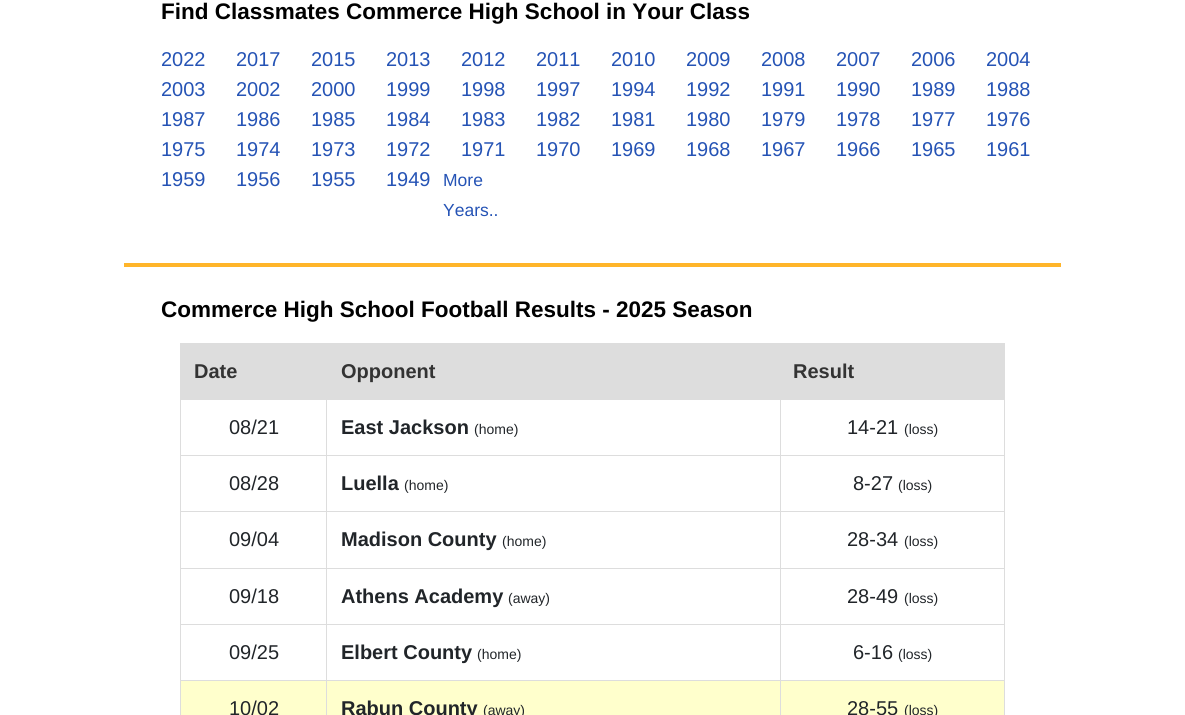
#include <cairo/cairo.h>
#include <math.h>
#include <stddef.h>

typedef struct { double x, y; const char *s; } line_t;
typedef struct { double x, y, w, h; unsigned color; } box_t;
static cairo_t *cr;

static void rgb(unsigned color)
{
	cairo_set_source_rgb(cr, (color >> 16) / 255.0, (color >> 8 & 255) / 255.0, (color & 255) / 255.0);
}

int main(void) {
	cairo_surface_t *surface = cairo_image_surface_create(CAIRO_FORMAT_RGB24, 1185, 715);
	cr = cairo_create(surface);
	cairo_font_options_t *options = cairo_font_options_create();
	cairo_font_options_set_hint_metrics(options, CAIRO_HINT_METRICS_OFF);
	cairo_font_options_set_hint_style(options, CAIRO_HINT_STYLE_NONE);
	cairo_set_font_options(cr, options);
	cairo_set_miter_limit(cr, 4);
	rgb(0xffffff);
	cairo_paint(cr);
	{
		static const box_t items[] = {
			{124, 263, 937, 4, 0xffb52a},
			{181, 344, 147, 55, 0xdddddd},
			{180, 343, 825, 1, 0xdddddd},
			{780, 455, 225, 1, 0xdddddd},
			{780, 511, 225, 1, 0xdddddd},
			{780, 568, 225, 1, 0xdddddd},
			{780, 624, 225, 1, 0xdddddd},
			{780, 680, 225, 1, 0xdddddd},
			{780, 680, 1, 35, 0xdddddd},
			{326, 680, 455, 1, 0xdddddd},
			{780, 624, 1, 57, 0xdddddd},
			{326, 624, 455, 1, 0xdddddd},
			{780, 568, 1, 57, 0xdddddd},
			{326, 568, 455, 1, 0xdddddd},
			{780, 511, 1, 58, 0xdddddd},
			{326, 511, 455, 1, 0xdddddd},
			{780, 455, 1, 58, 0xdddddd},
			{326, 455, 455, 1, 0xdddddd},
			{181, 681, 599, 34, 0xffffcc},
			{326, 680, 1, 35, 0xdddddd},
			{180, 680, 148, 1, 0xdddddd},
			{326, 624, 1, 57, 0xdddddd},
			{180, 624, 148, 1, 0xdddddd},
			{326, 568, 1, 57, 0xdddddd},
			{180, 568, 148, 1, 0xdddddd},
			{326, 511, 1, 58, 0xdddddd},
			{180, 511, 148, 1, 0xdddddd},
			{326, 455, 1, 58, 0xdddddd},
			{180, 455, 148, 1, 0xdddddd},
			{326, 399, 1, 57, 0xdddddd},
			{180, 399, 148, 1, 0xdddddd},
			{180, 680, 1, 35, 0xdddddd},
			{180, 624, 1, 57, 0xdddddd},
			{180, 568, 1, 57, 0xdddddd},
			{180, 511, 1, 58, 0xdddddd},
			{180, 455, 1, 58, 0xdddddd},
			{180, 399, 1, 57, 0xdddddd},
			{180, 343, 1, 57, 0xdddddd},
			{328, 344, 677, 56, 0xdddddd},
			{780, 399, 1, 57, 0xdddddd},
			{1004, 680, 1, 35, 0xdddddd},
			{1004, 624, 1, 57, 0xdddddd},
			{1004, 568, 1, 57, 0xdddddd},
			{1004, 511, 1, 58, 0xdddddd},
			{1004, 399, 1, 114, 0xdddddd},
			{781, 681, 223, 34, 0xffffcc},
		};
		for (size_t i = 0; i < sizeof items / sizeof *items; i++) {
			rgb(items[i].color);
			cairo_rectangle(cr, items[i].x, items[i].y, items[i].w, items[i].h);
			cairo_fill(cr);
		}
	}
	cairo_select_font_face(cr, "Liberation Sans", CAIRO_FONT_SLANT_NORMAL, CAIRO_FONT_WEIGHT_BOLD);
	cairo_set_font_size(cr, 22.5);
	rgb(0x000000);
	cairo_move_to(cr, 161, 19);
	cairo_show_text(cr, "Find Classmates Commerce High School in Your Class");
	cairo_select_font_face(cr, "Liberation Sans", CAIRO_FONT_SLANT_NORMAL, CAIRO_FONT_WEIGHT_NORMAL);
	cairo_set_font_size(cr, 20);
	rgb(0x2553b5);
	{
		static const line_t items[] = {
			{161, 66, "2022"},
			{236, 66, "2017"},
			{311, 66, "2015"},
			{386, 66, "2013"},
			{461, 66, "2012"},
			{536, 66, "2011"},
			{611, 66, "2010"},
			{686, 66, "2009"},
			{761, 66, "2008"},
			{836, 66, "2007"},
			{911, 66, "2006"},
			{986, 66, "2004"},
			{161, 96, "2003"},
			{236, 96, "2002"},
			{311, 96, "2000"},
			{386, 96, "1999"},
			{461, 96, "1998"},
			{536, 96, "1997"},
			{611, 96, "1994"},
			{686, 96, "1992"},
			{761, 96, "1991"},
			{836, 96, "1990"},
			{911, 96, "1989"},
			{986, 96, "1988"},
			{161, 126, "1987"},
			{236, 126, "1986"},
			{311, 126, "1985"},
			{386, 126, "1984"},
			{461, 126, "1983"},
			{536, 126, "1982"},
			{611, 126, "1981"},
			{686, 126, "1980"},
			{761, 126, "1979"},
			{836, 126, "1978"},
			{911, 126, "1977"},
			{986, 126, "1976"},
			{161, 156, "1975"},
			{236, 156, "1974"},
			{311, 156, "1973"},
			{386, 156, "1972"},
			{461, 156, "1971"},
			{536, 156, "1970"},
			{611, 156, "1969"},
			{686, 156, "1968"},
			{761, 156, "1967"},
			{836, 156, "1966"},
			{911, 156, "1965"},
			{986, 156, "1961"},
			{161, 186, "1959"},
			{236, 186, "1956"},
			{311, 186, "1955"},
			{386, 186, "1949"},
		};
		for (size_t i = 0; i < sizeof items / sizeof *items; i++) {
			cairo_move_to(cr, items[i].x, items[i].y);
			cairo_show_text(cr, items[i].s);
		}
	}
	cairo_set_font_size(cr, 17.5);
	cairo_move_to(cr, 443, 186);
	cairo_show_text(cr, "More");
	cairo_move_to(cr, 443, 216);
	cairo_show_text(cr, "Years..");
	cairo_select_font_face(cr, "Liberation Sans", CAIRO_FONT_SLANT_NORMAL, CAIRO_FONT_WEIGHT_BOLD);
	cairo_set_font_size(cr, 22.5);
	rgb(0x000000);
	cairo_move_to(cr, 161, 317);
	cairo_show_text(cr, "Commerce High School Football Results - 2025 Season");
	cairo_set_font_size(cr, 20);
	rgb(0x333333);
	{
		static const line_t items[] = {
			{194, 378, "Date"},
			{341, 378, "Opponent"},
			{793, 378, "Result"},
		};
		for (size_t i = 0; i < sizeof items / sizeof *items; i++) {
			cairo_move_to(cr, items[i].x, items[i].y);
			cairo_show_text(cr, items[i].s);
		}
	}
	cairo_select_font_face(cr, "Liberation Sans", CAIRO_FONT_SLANT_NORMAL, CAIRO_FONT_WEIGHT_NORMAL);
	rgb(0x212529);
	cairo_move_to(cr, 229, 434);
	cairo_show_text(cr, "08/21");
	cairo_select_font_face(cr, "Liberation Sans", CAIRO_FONT_SLANT_NORMAL, CAIRO_FONT_WEIGHT_BOLD);
	cairo_move_to(cr, 341, 434);
	cairo_show_text(cr, "East Jackson");
	cairo_select_font_face(cr, "Liberation Sans", CAIRO_FONT_SLANT_NORMAL, CAIRO_FONT_WEIGHT_NORMAL);
	cairo_set_font_size(cr, 14);
	cairo_move_to(cr, 474, 434);
	cairo_show_text(cr, "(home)");
	cairo_set_font_size(cr, 20);
	cairo_move_to(cr, 847, 434);
	cairo_show_text(cr, "14-21");
	cairo_set_font_size(cr, 14);
	cairo_move_to(cr, 904, 434);
	cairo_show_text(cr, "(loss)");
	cairo_set_font_size(cr, 20);
	cairo_move_to(cr, 229, 490);
	cairo_show_text(cr, "08/28");
	cairo_select_font_face(cr, "Liberation Sans", CAIRO_FONT_SLANT_NORMAL, CAIRO_FONT_WEIGHT_BOLD);
	cairo_move_to(cr, 341, 490);
	cairo_show_text(cr, "Luella");
	cairo_select_font_face(cr, "Liberation Sans", CAIRO_FONT_SLANT_NORMAL, CAIRO_FONT_WEIGHT_NORMAL);
	cairo_set_font_size(cr, 14);
	cairo_move_to(cr, 404, 490);
	cairo_show_text(cr, "(home)");
	cairo_set_font_size(cr, 20);
	cairo_move_to(cr, 853, 490);
	cairo_show_text(cr, "8-27");
	cairo_set_font_size(cr, 14);
	cairo_move_to(cr, 898, 490);
	cairo_show_text(cr, "(loss)");
	cairo_set_font_size(cr, 20);
	cairo_move_to(cr, 229, 546);
	cairo_show_text(cr, "09/04");
	cairo_select_font_face(cr, "Liberation Sans", CAIRO_FONT_SLANT_NORMAL, CAIRO_FONT_WEIGHT_BOLD);
	cairo_move_to(cr, 341, 546);
	cairo_show_text(cr, "Madison County");
	cairo_select_font_face(cr, "Liberation Sans", CAIRO_FONT_SLANT_NORMAL, CAIRO_FONT_WEIGHT_NORMAL);
	cairo_set_font_size(cr, 14);
	cairo_move_to(cr, 502, 546);
	cairo_show_text(cr, "(home)");
	cairo_set_font_size(cr, 20);
	cairo_move_to(cr, 847, 546);
	cairo_show_text(cr, "28-34");
	cairo_set_font_size(cr, 14);
	cairo_move_to(cr, 904, 546);
	cairo_show_text(cr, "(loss)");
	cairo_set_font_size(cr, 20);
	cairo_move_to(cr, 229, 603);
	cairo_show_text(cr, "09/18");
	cairo_select_font_face(cr, "Liberation Sans", CAIRO_FONT_SLANT_NORMAL, CAIRO_FONT_WEIGHT_BOLD);
	cairo_move_to(cr, 341, 603);
	cairo_show_text(cr, "Athens Academy");
	cairo_select_font_face(cr, "Liberation Sans", CAIRO_FONT_SLANT_NORMAL, CAIRO_FONT_WEIGHT_NORMAL);
	cairo_set_font_size(cr, 14);
	cairo_move_to(cr, 508, 603);
	cairo_show_text(cr, "(away)");
	cairo_set_font_size(cr, 20);
	cairo_move_to(cr, 847, 603);
	cairo_show_text(cr, "28-49");
	cairo_set_font_size(cr, 14);
	cairo_move_to(cr, 904, 603);
	cairo_show_text(cr, "(loss)");
	cairo_set_font_size(cr, 20);
	cairo_move_to(cr, 229, 659);
	cairo_show_text(cr, "09/25");
	cairo_select_font_face(cr, "Liberation Sans", CAIRO_FONT_SLANT_NORMAL, CAIRO_FONT_WEIGHT_BOLD);
	cairo_move_to(cr, 341, 659);
	cairo_show_text(cr, "Elbert County");
	cairo_select_font_face(cr, "Liberation Sans", CAIRO_FONT_SLANT_NORMAL, CAIRO_FONT_WEIGHT_NORMAL);
	cairo_set_font_size(cr, 14);
	cairo_move_to(cr, 477, 659);
	cairo_show_text(cr, "(home)");
	cairo_set_font_size(cr, 20);
	cairo_move_to(cr, 853, 659);
	cairo_show_text(cr, "6-16");
	cairo_set_font_size(cr, 14);
	cairo_move_to(cr, 898, 659);
	cairo_show_text(cr, "(loss)");
	cairo_set_font_size(cr, 20);
	cairo_move_to(cr, 229, 715);
	cairo_show_text(cr, "10/02");
	cairo_select_font_face(cr, "Liberation Sans", CAIRO_FONT_SLANT_NORMAL, CAIRO_FONT_WEIGHT_BOLD);
	cairo_move_to(cr, 341, 715);
	cairo_show_text(cr, "Rabun County");
	cairo_select_font_face(cr, "Liberation Sans", CAIRO_FONT_SLANT_NORMAL, CAIRO_FONT_WEIGHT_NORMAL);
	cairo_set_font_size(cr, 14);
	cairo_move_to(cr, 483, 715);
	cairo_show_text(cr, "(away)");
	cairo_set_font_size(cr, 20);
	cairo_move_to(cr, 847, 715);
	cairo_show_text(cr, "28-55");
	cairo_set_font_size(cr, 14);
	cairo_move_to(cr, 904, 715);
	cairo_show_text(cr, "(loss)");
	cairo_surface_write_to_png(surface, "page.png");
	cairo_font_options_destroy(options);
	cairo_destroy(cr);
	cairo_surface_destroy(surface);
	return 0;
}
